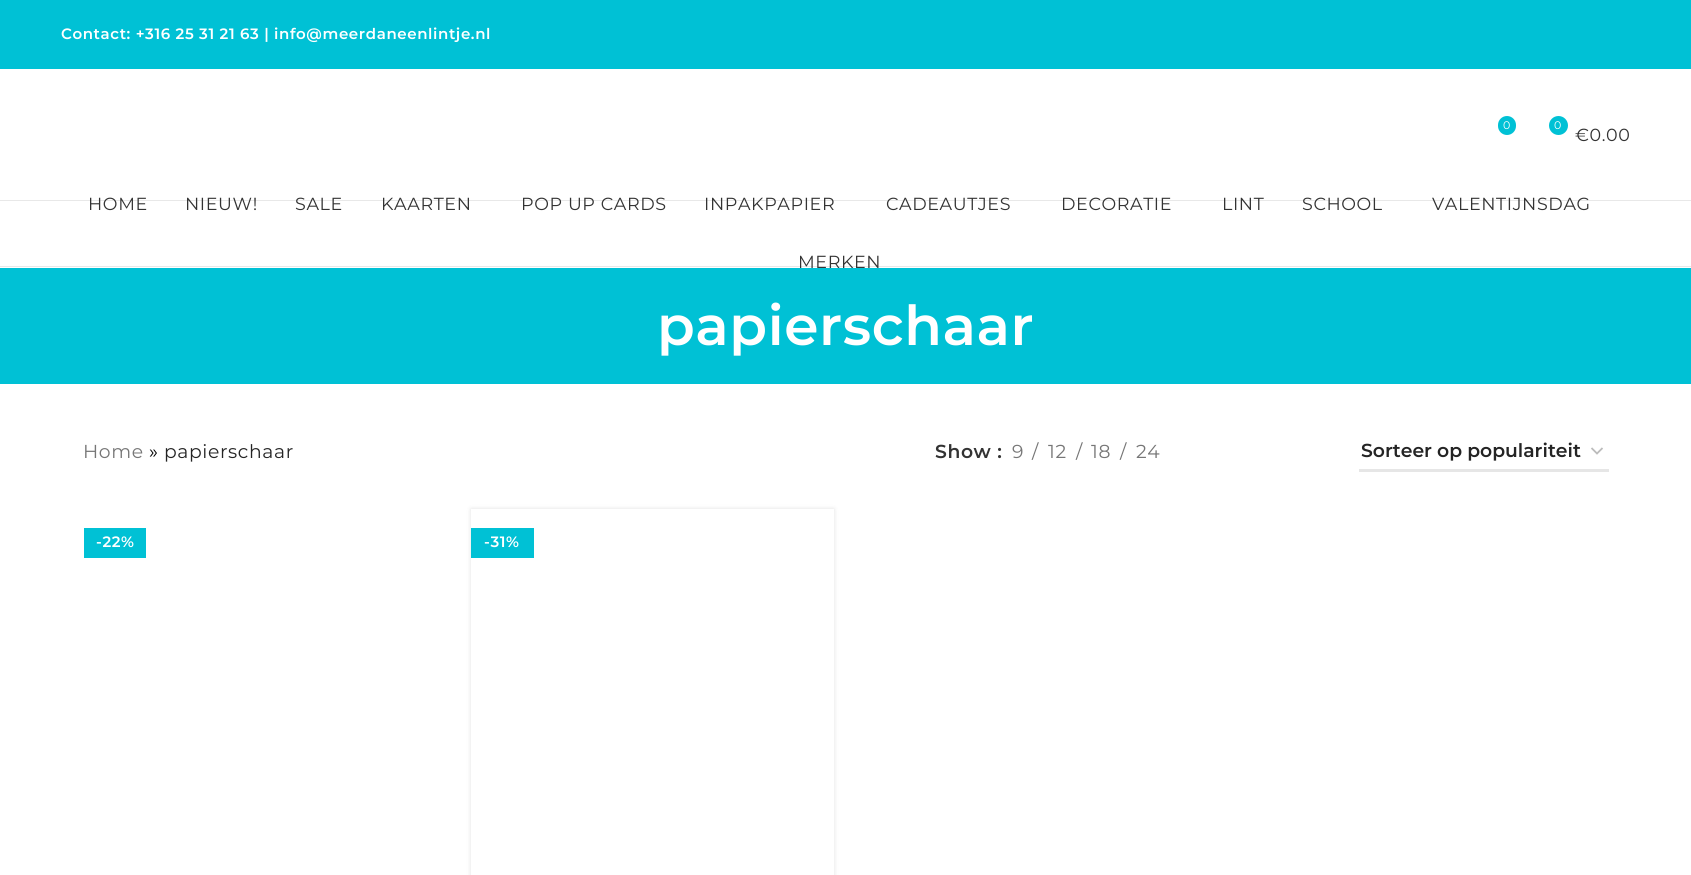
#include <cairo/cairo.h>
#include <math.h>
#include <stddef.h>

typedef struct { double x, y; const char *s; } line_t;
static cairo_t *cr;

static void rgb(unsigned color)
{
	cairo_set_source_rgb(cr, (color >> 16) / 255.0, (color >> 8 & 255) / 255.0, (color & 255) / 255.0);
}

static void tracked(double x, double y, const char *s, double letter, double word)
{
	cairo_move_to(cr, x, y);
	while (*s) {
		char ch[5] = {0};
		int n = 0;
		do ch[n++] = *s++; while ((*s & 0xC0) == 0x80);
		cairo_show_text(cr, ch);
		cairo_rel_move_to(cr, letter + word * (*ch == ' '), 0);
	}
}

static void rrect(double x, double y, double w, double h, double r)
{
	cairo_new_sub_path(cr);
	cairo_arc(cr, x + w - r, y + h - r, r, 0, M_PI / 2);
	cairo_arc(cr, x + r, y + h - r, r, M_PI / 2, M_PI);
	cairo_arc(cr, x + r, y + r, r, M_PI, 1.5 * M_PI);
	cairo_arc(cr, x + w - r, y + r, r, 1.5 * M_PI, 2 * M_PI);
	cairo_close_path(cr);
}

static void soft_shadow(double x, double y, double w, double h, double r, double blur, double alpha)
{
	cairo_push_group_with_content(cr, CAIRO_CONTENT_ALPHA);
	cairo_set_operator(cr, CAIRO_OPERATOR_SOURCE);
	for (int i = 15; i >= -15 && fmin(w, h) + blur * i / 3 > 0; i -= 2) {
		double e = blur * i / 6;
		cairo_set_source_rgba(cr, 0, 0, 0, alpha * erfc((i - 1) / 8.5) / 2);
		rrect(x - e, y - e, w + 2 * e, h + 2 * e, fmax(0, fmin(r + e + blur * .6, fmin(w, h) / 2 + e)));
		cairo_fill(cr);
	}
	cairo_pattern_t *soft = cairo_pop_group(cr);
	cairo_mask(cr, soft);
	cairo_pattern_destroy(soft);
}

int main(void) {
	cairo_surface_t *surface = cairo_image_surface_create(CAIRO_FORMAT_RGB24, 1691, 875);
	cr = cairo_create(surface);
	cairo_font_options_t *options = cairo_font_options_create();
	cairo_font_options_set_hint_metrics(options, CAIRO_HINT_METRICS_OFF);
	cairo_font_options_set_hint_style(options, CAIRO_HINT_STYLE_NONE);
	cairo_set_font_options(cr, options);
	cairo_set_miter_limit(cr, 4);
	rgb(0xffffff);
	cairo_paint(cr);
	rgb(0x00c1d5);
	cairo_rectangle(cr, 0, 0, 1691, 69);
	cairo_fill(cr);
	rgb(0xe8e8e8);
	cairo_rectangle(cr, 0, 200, 1691, 1);
	cairo_fill(cr);
	rgb(0x00c1d5);
	rrect(1498, 116, 18, 19, 9);
	cairo_fill(cr);
	cairo_arc(cr, 1558.5, 125.5, 9.5, 0, 2 * M_PI);
	cairo_fill(cr);
	rgb(0xe8e8e8);
	cairo_rectangle(cr, 0, 266, 1691, 1);
	cairo_fill(cr);
	rgb(0x00c1d5);
	cairo_rectangle(cr, 0, 268, 1691, 116);
	cairo_fill(cr);
	cairo_new_path(cr);
	cairo_move_to(cr, 1591.5, 448);
	cairo_line_to(cr, 1597, 453.5);
	cairo_line_to(cr, 1602.5, 448);
	rgb(0xbbbbbb);
	cairo_set_line_width(cr, 1.8);
	cairo_stroke(cr);
	rgb(0xe6e6e6);
	cairo_rectangle(cr, 1359, 469, 250, 3);
	cairo_fill(cr);
	rgb(0x00c1d5);
	cairo_rectangle(cr, 84, 528, 62, 30);
	cairo_fill(cr);
	rgb(0x000000);
	soft_shadow(471, 509, 363, 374, 0, 2.5, 0.12);
	rgb(0xffffff);
	cairo_rectangle(cr, 471, 509, 363, 366);
	cairo_fill(cr);
	rgb(0x00c1d5);
	cairo_rectangle(cr, 471, 528, 63, 30);
	cairo_fill(cr);
	cairo_select_font_face(cr, "Montserrat SemiBold", CAIRO_FONT_SLANT_NORMAL, CAIRO_FONT_WEIGHT_NORMAL);
	cairo_set_font_size(cr, 15);
	rgb(0xffffff);
	tracked(61, 39, "Contact: +316 25 31 21 63 | info@meerdaneenlintje.nl", 0.62, 0);
	cairo_select_font_face(cr, "Montserrat", CAIRO_FONT_SLANT_NORMAL, CAIRO_FONT_WEIGHT_NORMAL);
	cairo_set_font_size(cr, 11);
	cairo_move_to(cr, 1503, 129);
	cairo_show_text(cr, "0");
	cairo_move_to(cr, 1554, 129);
	cairo_show_text(cr, "0");
	cairo_set_font_size(cr, 17.5);
	rgb(0x333333);
	{
		static const line_t items[] = {
			{1575, 141, "€0.00"},
			{88, 210, "HOME"},
			{185, 210, "NIEUW!"},
			{295, 210, "SALE"},
			{381, 210, "KAARTEN"},
			{521, 210, "POP UP CARDS"},
			{704, 210, "INPAKPAPIER"},
			{886, 210, "CADEAUTJES"},
			{1061, 210, "DECORATIE"},
			{1222, 210, "LINT"},
			{1302, 210, "SCHOOL"},
			{1432, 210, "VALENTIJNSDAG"},
			{798, 268, "MERKEN"},
		};
		for (size_t i = 0; i < sizeof items / sizeof *items; i++) {
			tracked(items[i].x, items[i].y, items[i].s, 0.62, 0);
		}
	}
	cairo_select_font_face(cr, "Montserrat SemiBold", CAIRO_FONT_SLANT_NORMAL, CAIRO_FONT_WEIGHT_NORMAL);
	cairo_set_font_size(cr, 55);
	rgb(0xffffff);
	tracked(657, 345, "papierschaar", 0.62, 0);
	cairo_select_font_face(cr, "Montserrat", CAIRO_FONT_SLANT_NORMAL, CAIRO_FONT_WEIGHT_NORMAL);
	cairo_set_font_size(cr, 18.75);
	rgb(0x767676);
	tracked(83, 458, "Home", 0.62, 0);
	rgb(0x000000);
	tracked(149, 458, "»", 0.62, 0);
	rgb(0x242424);
	tracked(164, 458, "papierschaar", 0.62, 0);
	cairo_select_font_face(cr, "Montserrat SemiBold", CAIRO_FONT_SLANT_NORMAL, CAIRO_FONT_WEIGHT_NORMAL);
	rgb(0x333333);
	tracked(935, 458, "Show :", 0.62, 0);
	cairo_select_font_face(cr, "Montserrat", CAIRO_FONT_SLANT_NORMAL, CAIRO_FONT_WEIGHT_NORMAL);
	rgb(0x767676);
	{
		static const line_t items[] = {
			{1012, 458, "9"},
			{1032, 458, "/"},
			{1048, 458, "12"},
			{1076, 458, "/"},
			{1091, 458, "18"},
			{1120, 458, "/"},
			{1136, 458, "24"},
		};
		for (size_t i = 0; i < sizeof items / sizeof *items; i++) {
			tracked(items[i].x, items[i].y, items[i].s, 0.62, 0);
		}
	}
	cairo_select_font_face(cr, "Montserrat SemiBold", CAIRO_FONT_SLANT_NORMAL, CAIRO_FONT_WEIGHT_NORMAL);
	rgb(0x242424);
	cairo_move_to(cr, 1361, 457);
	cairo_show_text(cr, "Sorteer op populariteit");
	cairo_set_font_size(cr, 15);
	rgb(0xffffff);
	tracked(96, 547, "-22%", 0.62, 0);
	tracked(484, 547, "-31%", 0.62, 0);
	cairo_surface_write_to_png(surface, "page.png");
	cairo_font_options_destroy(options);
	cairo_destroy(cr);
	cairo_surface_destroy(surface);
	return 0;
}
